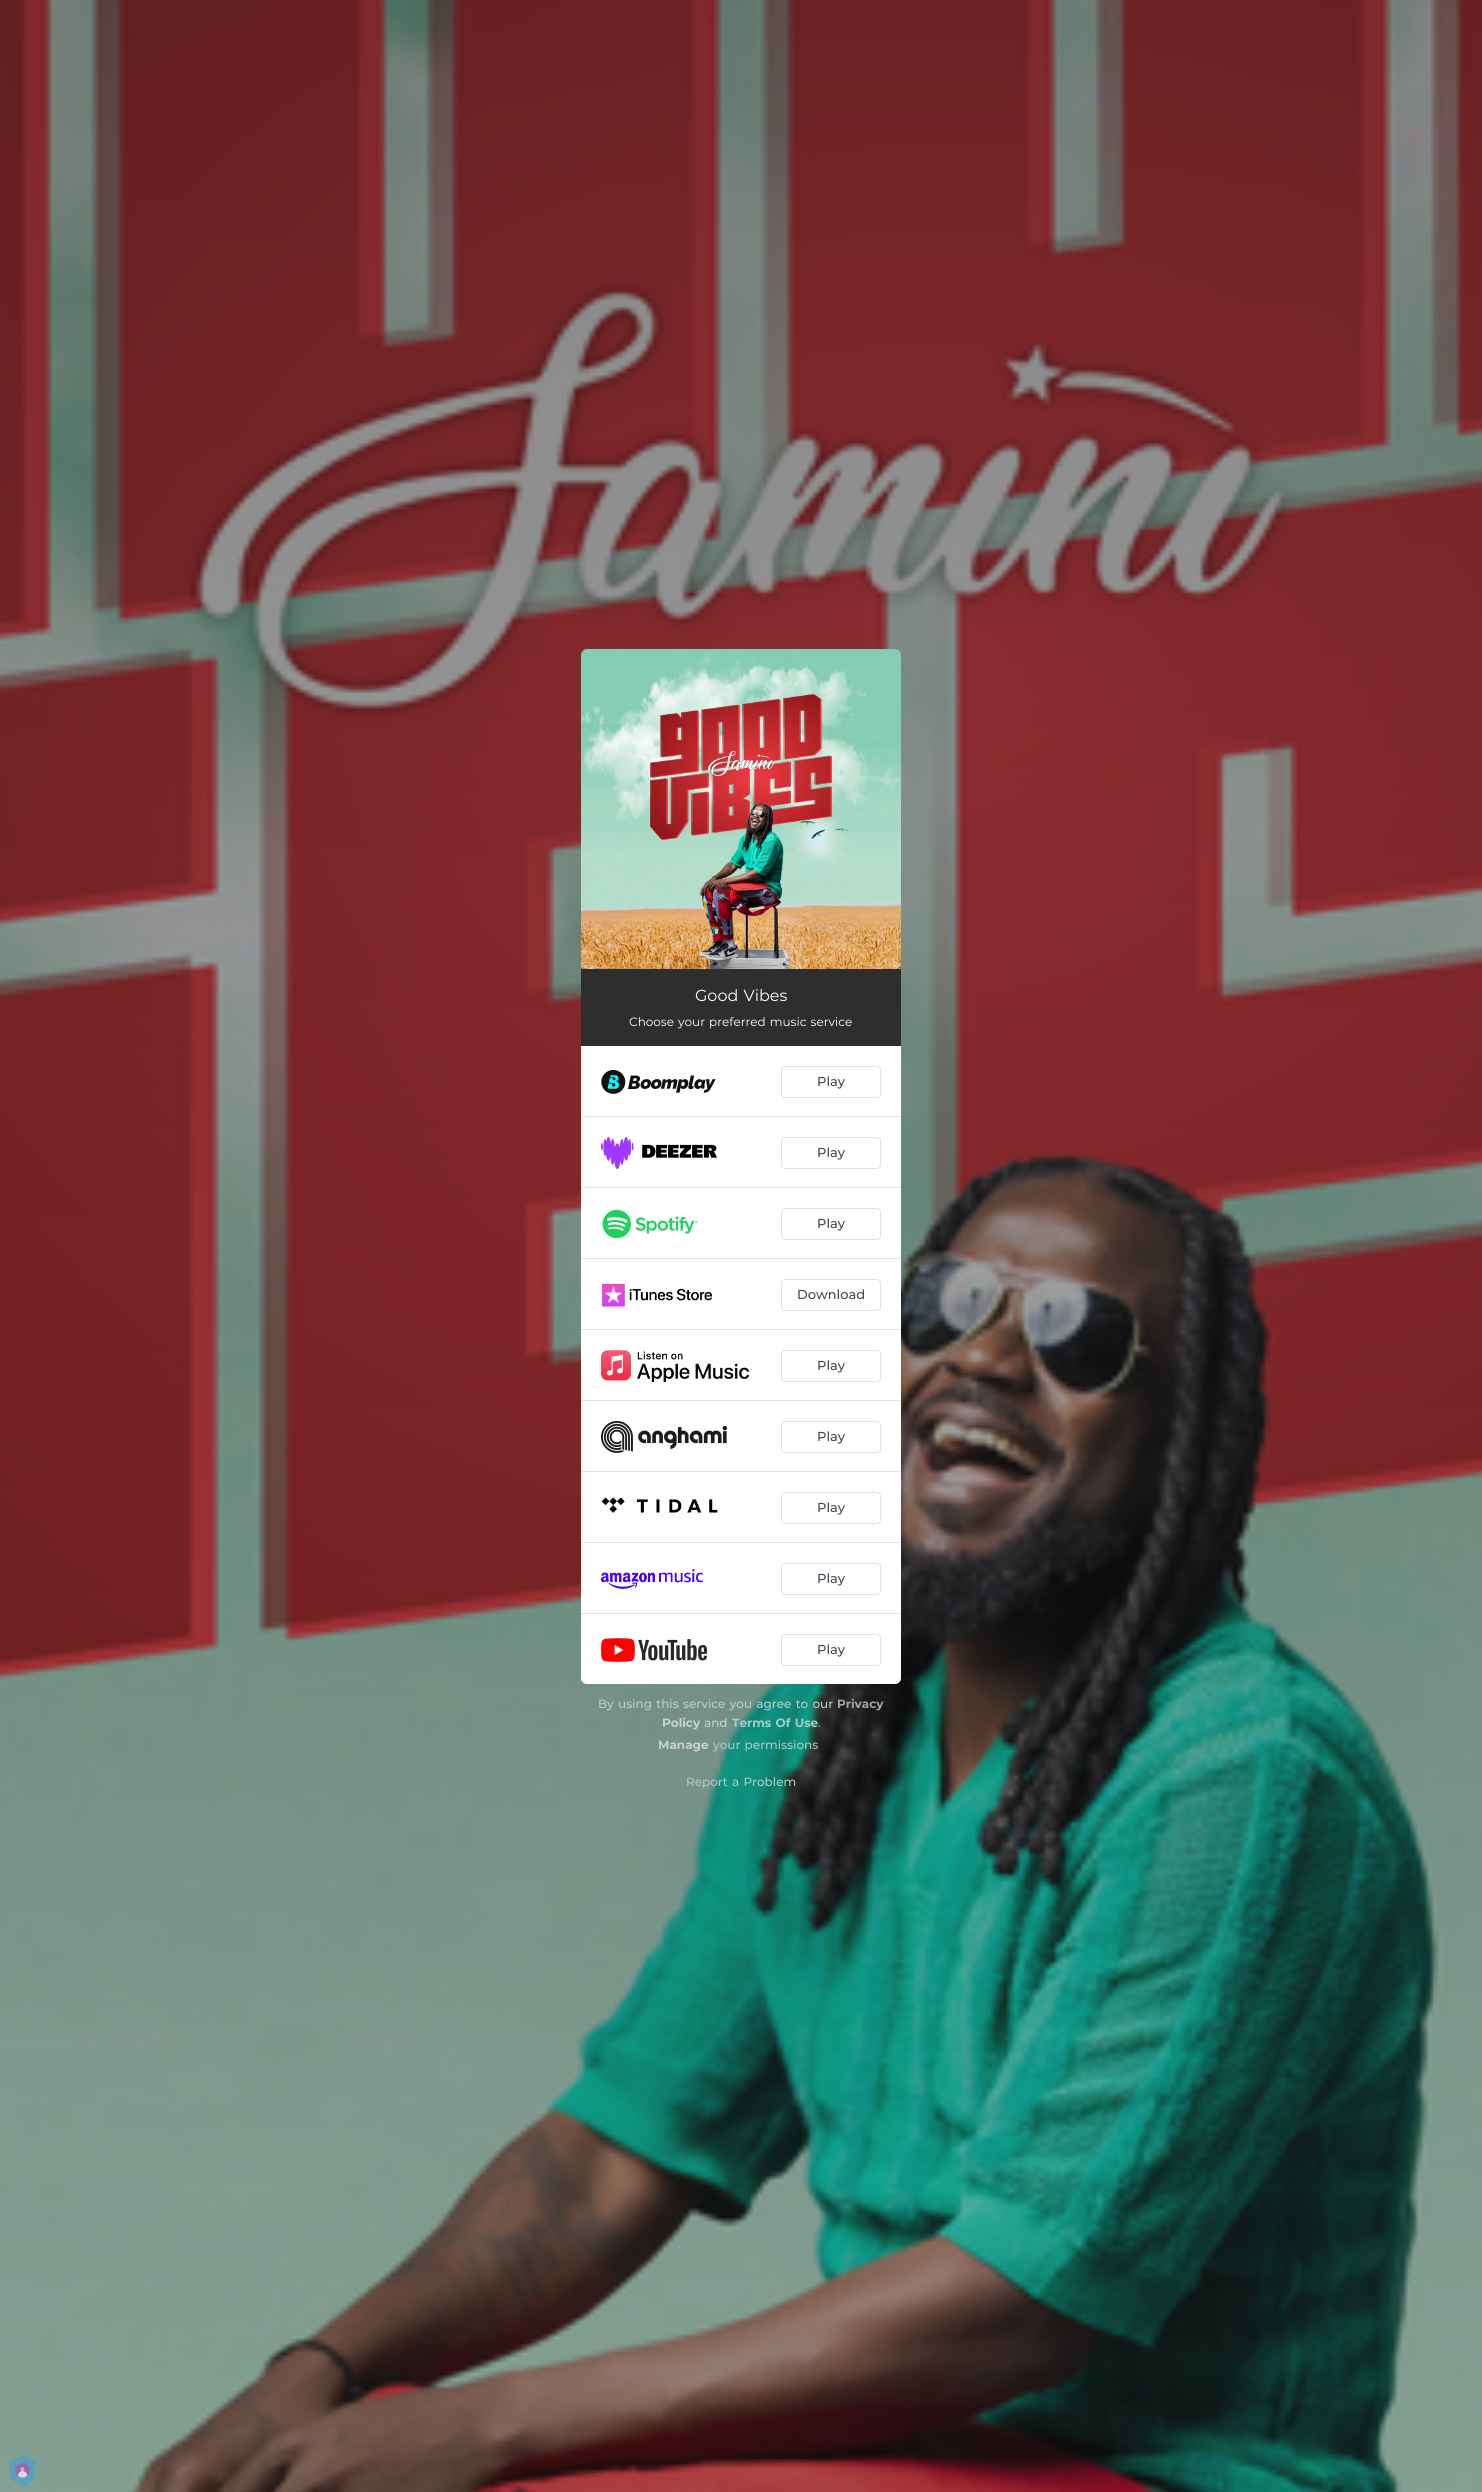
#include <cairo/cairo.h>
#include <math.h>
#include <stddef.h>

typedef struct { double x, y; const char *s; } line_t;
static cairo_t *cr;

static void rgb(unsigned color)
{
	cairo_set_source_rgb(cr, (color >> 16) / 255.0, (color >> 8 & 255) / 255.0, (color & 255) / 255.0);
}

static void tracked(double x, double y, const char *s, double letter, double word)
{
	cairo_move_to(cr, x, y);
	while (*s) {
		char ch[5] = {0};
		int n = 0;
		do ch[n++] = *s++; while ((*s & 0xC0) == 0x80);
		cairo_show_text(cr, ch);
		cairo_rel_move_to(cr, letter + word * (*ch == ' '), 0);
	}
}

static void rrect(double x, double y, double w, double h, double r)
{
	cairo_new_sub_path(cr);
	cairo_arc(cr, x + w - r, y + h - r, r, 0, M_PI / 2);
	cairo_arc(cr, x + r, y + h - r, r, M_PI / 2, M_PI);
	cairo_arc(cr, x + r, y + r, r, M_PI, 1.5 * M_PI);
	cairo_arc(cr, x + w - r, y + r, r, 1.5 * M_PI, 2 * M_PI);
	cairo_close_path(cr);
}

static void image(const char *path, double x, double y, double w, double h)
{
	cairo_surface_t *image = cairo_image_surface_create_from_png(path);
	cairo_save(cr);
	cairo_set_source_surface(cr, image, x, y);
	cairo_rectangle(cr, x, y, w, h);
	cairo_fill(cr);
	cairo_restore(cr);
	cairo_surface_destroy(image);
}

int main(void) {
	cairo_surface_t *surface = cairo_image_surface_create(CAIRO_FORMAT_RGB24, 1482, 2492);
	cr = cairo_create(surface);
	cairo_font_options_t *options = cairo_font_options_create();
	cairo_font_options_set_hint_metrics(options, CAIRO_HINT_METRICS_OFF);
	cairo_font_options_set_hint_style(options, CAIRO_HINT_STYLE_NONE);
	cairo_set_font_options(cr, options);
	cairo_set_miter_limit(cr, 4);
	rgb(0xffffff);
	cairo_paint(cr);
	image("img/1.png", 0, 0, 1482, 2492);
	image("img/2.png", 581, 649, 320, 320);
	rgb(0x2e2e2e);
	cairo_rectangle(cr, 581, 969, 320, 77);
	cairo_fill(cr);
	rgb(0xffffff);
	cairo_new_path(cr);
	cairo_move_to(cr, 581, 1046);
	cairo_line_to(cr, 901, 1046);
	cairo_line_to(cr, 901, 1678);
	cairo_curve_to(cr, 901, 1681.5, 898.5, 1684, 895, 1684);
	cairo_line_to(cr, 587, 1684);
	cairo_curve_to(cr, 583.5, 1684, 581, 1681.5, 581, 1678);
	cairo_close_path(cr);
	cairo_fill(cr);
	rgb(0xe1e1e4);
	cairo_rectangle(cr, 581, 1116, 320, 1);
	cairo_fill(cr);
	image("img/3.png", 601, 1070, 115, 24);
	rrect(781.5, 1066.5, 99, 31, 3.5);
	cairo_set_line_width(cr, 1);
	cairo_stroke(cr);
	cairo_rectangle(cr, 581, 1187, 320, 1);
	cairo_fill(cr);
	image("img/4.png", 601, 1137, 116, 32);
	rrect(781.5, 1137.5, 99, 31, 3.5);
	cairo_stroke(cr);
	cairo_rectangle(cr, 581, 1258, 320, 1);
	cairo_fill(cr);
	image("img/5.png", 602, 1209, 96, 30);
	rrect(781.5, 1208.5, 99, 31, 3.5);
	cairo_stroke(cr);
	cairo_rectangle(cr, 581, 1329, 320, 1);
	cairo_fill(cr);
	image("img/6.png", 602, 1283, 111, 24);
	rrect(781.5, 1279.5, 99, 31, 3.5);
	cairo_stroke(cr);
	cairo_rectangle(cr, 581, 1400, 320, 1);
	cairo_fill(cr);
	image("img/7.png", 601, 1350, 148, 32);
	rrect(781.5, 1350.5, 99, 31, 3.5);
	cairo_stroke(cr);
	cairo_rectangle(cr, 581, 1471, 320, 1);
	cairo_fill(cr);
	image("img/8.png", 601, 1421, 126, 32);
	rrect(781.5, 1421.5, 99, 31, 3.5);
	cairo_stroke(cr);
	cairo_rectangle(cr, 581, 1542, 320, 1);
	cairo_fill(cr);
	image("img/9.png", 601, 1497, 117, 16);
	rrect(781.5, 1492.5, 99, 31, 3.5);
	cairo_stroke(cr);
	cairo_rectangle(cr, 581, 1613, 320, 1);
	cairo_fill(cr);
	image("img/10.png", 601, 1569, 102, 20);
	rrect(781.5, 1563.5, 99, 31, 3.5);
	cairo_stroke(cr);
	image("img/11.png", 601, 1638, 106, 24);
	rrect(781.5, 1634.5, 99, 31, 3.5);
	cairo_stroke(cr);
	image("img/12.png", 10, 2454, 25, 33);
	cairo_select_font_face(cr, "Montserrat", CAIRO_FONT_SLANT_NORMAL, CAIRO_FONT_WEIGHT_NORMAL);
	cairo_set_font_size(cr, 16);
	rgb(0xffffff);
	tracked(695, 1001, "Good Vibes", 0, 1);
	cairo_set_font_size(cr, 12);
	tracked(629, 1026, "Choose your preferred music service", 0, 1);
	cairo_select_font_face(cr, "Montserrat Medium", CAIRO_FONT_SLANT_NORMAL, CAIRO_FONT_WEIGHT_NORMAL);
	cairo_set_font_size(cr, 13);
	rgb(0x414754);
	{
		static const line_t items[] = {
			{817, 1086, "Play"},
			{817, 1157, "Play"},
			{817, 1228, "Play"},
			{797, 1299, "Download"},
			{817, 1370, "Play"},
			{817, 1441, "Play"},
			{817, 1512, "Play"},
			{817, 1583, "Play"},
			{817, 1654, "Play"},
		};
		for (size_t i = 0; i < sizeof items / sizeof *items; i++) {
			cairo_move_to(cr, items[i].x, items[i].y);
			cairo_show_text(cr, items[i].s);
		}
	}
	cairo_set_font_size(cr, 12);
	rgb(0xbccfcb);
	tracked(598, 1708, "By using this service you agree to our", 0, 1);
	cairo_select_font_face(cr, "Montserrat", CAIRO_FONT_SLANT_NORMAL, CAIRO_FONT_WEIGHT_BOLD);
	rgb(0xa5a5a6);
	cairo_move_to(cr, 837, 1708);
	cairo_show_text(cr, "Privacy");
	rgb(0xc8d3cf);
	cairo_move_to(cr, 662, 1727);
	cairo_show_text(cr, "Policy");
	cairo_select_font_face(cr, "Montserrat Medium", CAIRO_FONT_SLANT_NORMAL, CAIRO_FONT_WEIGHT_NORMAL);
	cairo_move_to(cr, 704, 1727);
	cairo_show_text(cr, "and");
	cairo_select_font_face(cr, "Montserrat", CAIRO_FONT_SLANT_NORMAL, CAIRO_FONT_WEIGHT_BOLD);
	rgb(0xa4cfc9);
	tracked(732, 1727, "Terms Of Use", 0, 1);
	cairo_select_font_face(cr, "Montserrat Medium", CAIRO_FONT_SLANT_NORMAL, CAIRO_FONT_WEIGHT_NORMAL);
	rgb(0xacacac);
	cairo_move_to(cr, 818, 1727);
	cairo_show_text(cr, ".");
	cairo_select_font_face(cr, "Montserrat", CAIRO_FONT_SLANT_NORMAL, CAIRO_FONT_WEIGHT_BOLD);
	rgb(0xc8d3cf);
	cairo_move_to(cr, 658, 1749);
	cairo_show_text(cr, "Manage");
	cairo_select_font_face(cr, "Montserrat Medium", CAIRO_FONT_SLANT_NORMAL, CAIRO_FONT_WEIGHT_NORMAL);
	rgb(0xa4cfc9);
	tracked(713, 1749, "your permissions", 0, 1);
	rgb(0xaccdc8);
	tracked(686, 1786, "Report a Problem", 0, 1);
	cairo_surface_write_to_png(surface, "page.png");
	cairo_font_options_destroy(options);
	cairo_destroy(cr);
	cairo_surface_destroy(surface);
	return 0;
}
